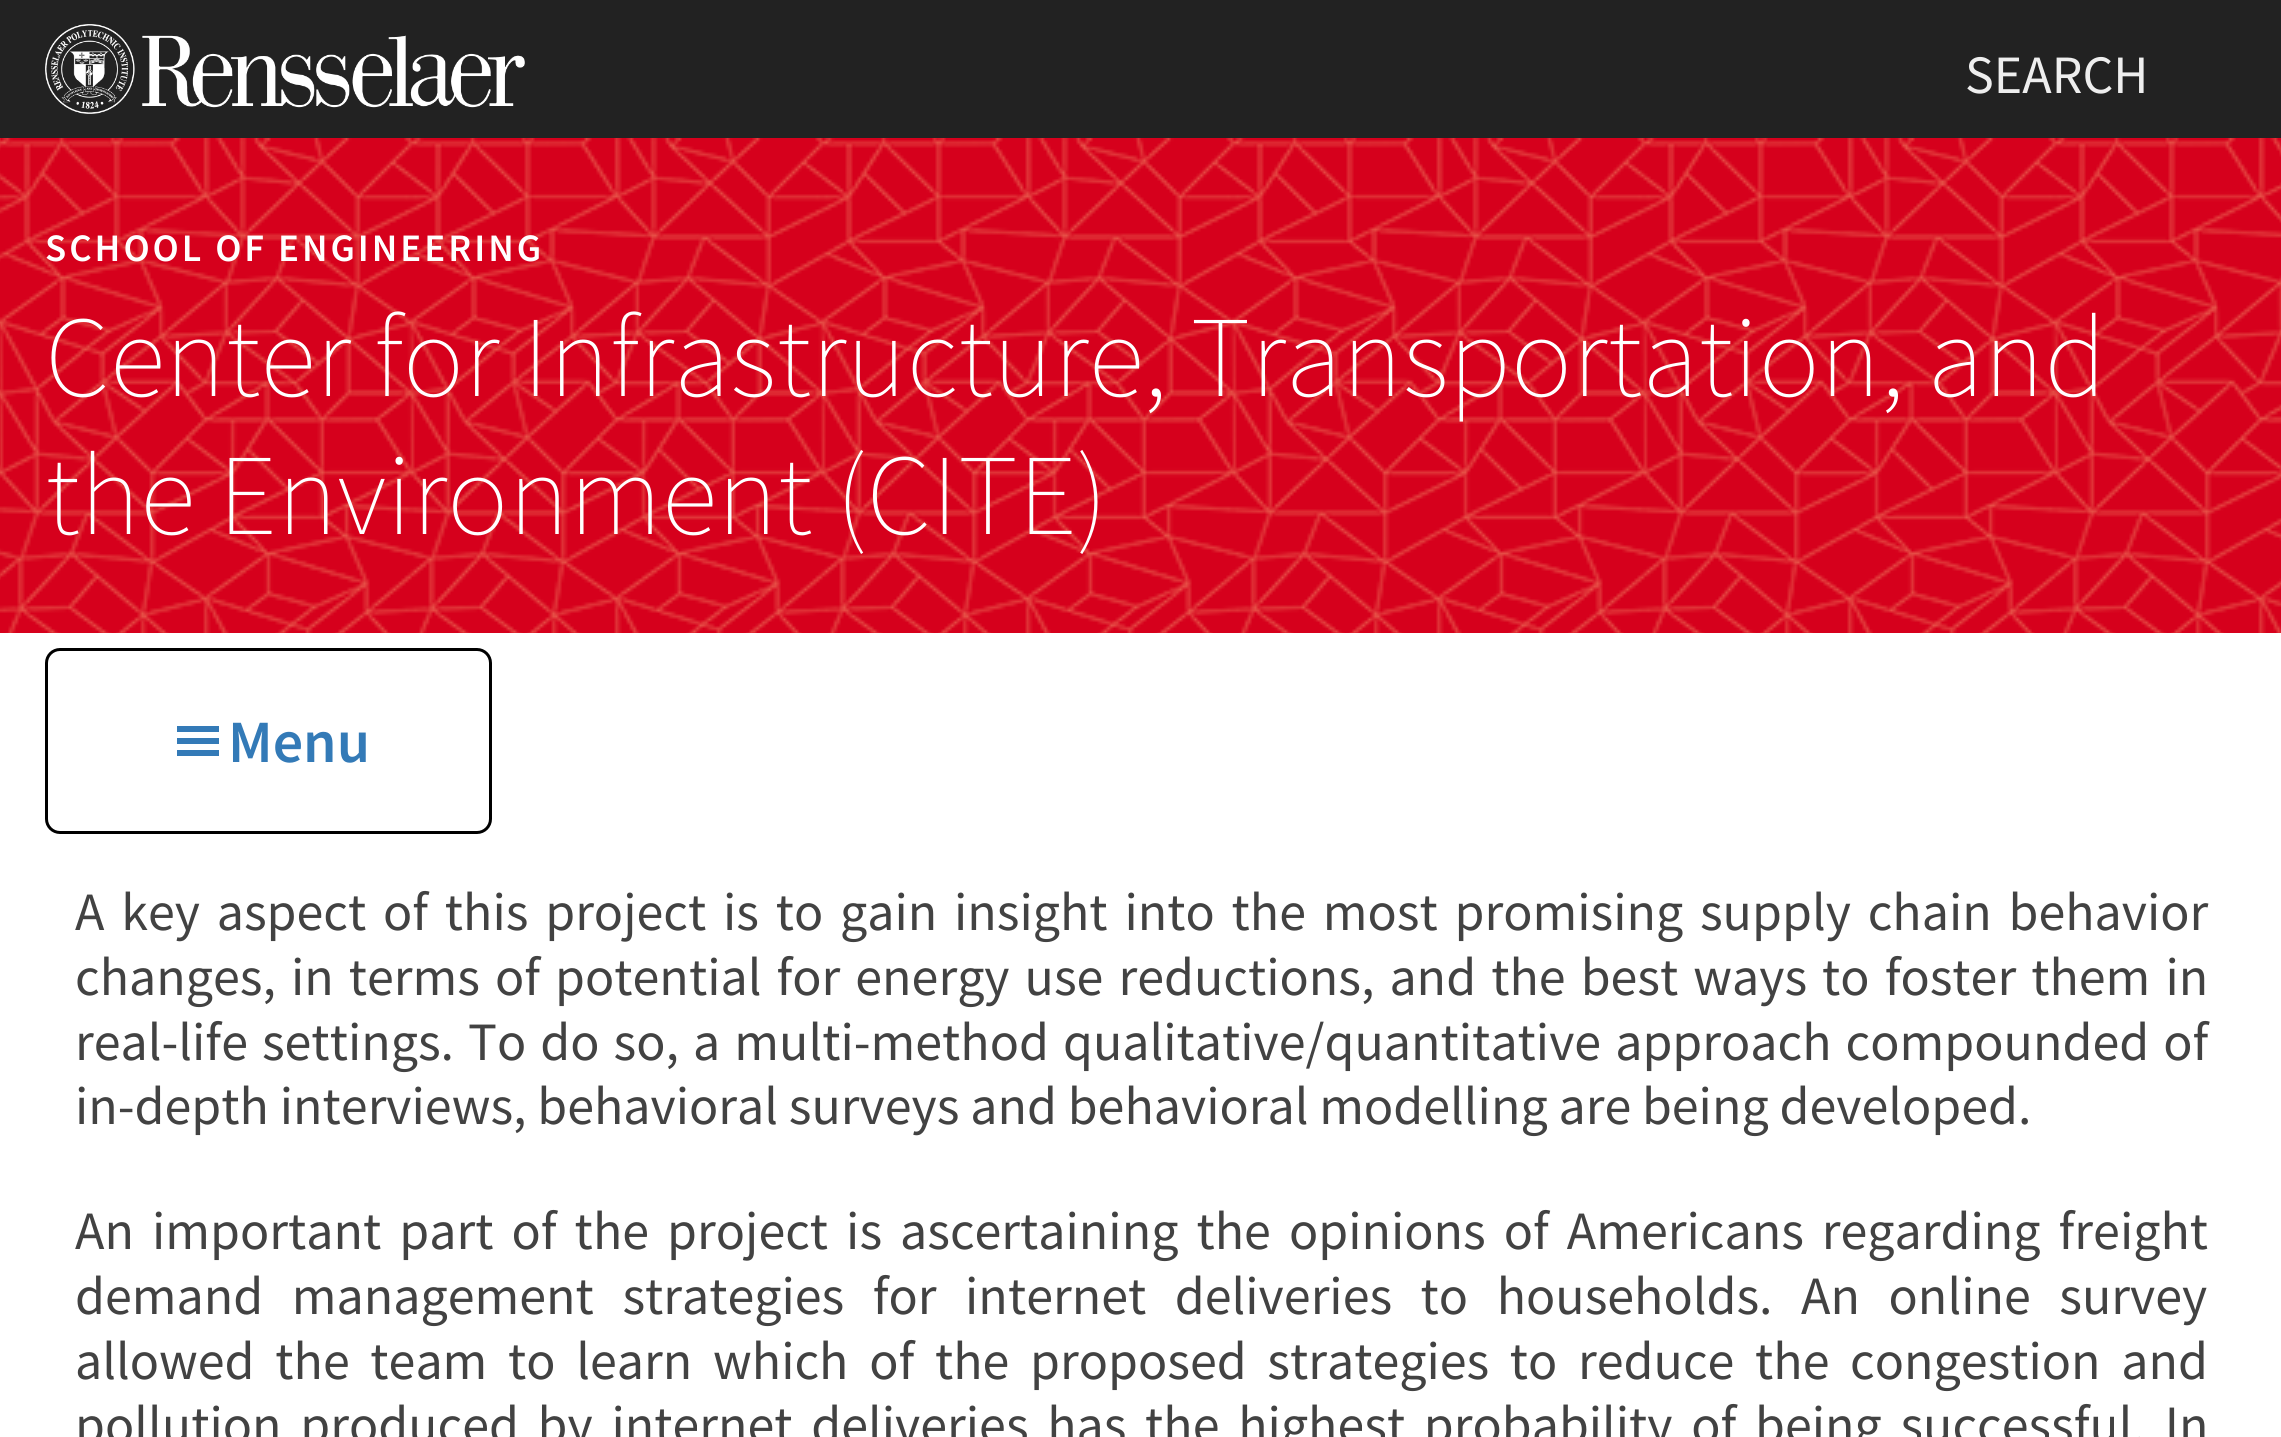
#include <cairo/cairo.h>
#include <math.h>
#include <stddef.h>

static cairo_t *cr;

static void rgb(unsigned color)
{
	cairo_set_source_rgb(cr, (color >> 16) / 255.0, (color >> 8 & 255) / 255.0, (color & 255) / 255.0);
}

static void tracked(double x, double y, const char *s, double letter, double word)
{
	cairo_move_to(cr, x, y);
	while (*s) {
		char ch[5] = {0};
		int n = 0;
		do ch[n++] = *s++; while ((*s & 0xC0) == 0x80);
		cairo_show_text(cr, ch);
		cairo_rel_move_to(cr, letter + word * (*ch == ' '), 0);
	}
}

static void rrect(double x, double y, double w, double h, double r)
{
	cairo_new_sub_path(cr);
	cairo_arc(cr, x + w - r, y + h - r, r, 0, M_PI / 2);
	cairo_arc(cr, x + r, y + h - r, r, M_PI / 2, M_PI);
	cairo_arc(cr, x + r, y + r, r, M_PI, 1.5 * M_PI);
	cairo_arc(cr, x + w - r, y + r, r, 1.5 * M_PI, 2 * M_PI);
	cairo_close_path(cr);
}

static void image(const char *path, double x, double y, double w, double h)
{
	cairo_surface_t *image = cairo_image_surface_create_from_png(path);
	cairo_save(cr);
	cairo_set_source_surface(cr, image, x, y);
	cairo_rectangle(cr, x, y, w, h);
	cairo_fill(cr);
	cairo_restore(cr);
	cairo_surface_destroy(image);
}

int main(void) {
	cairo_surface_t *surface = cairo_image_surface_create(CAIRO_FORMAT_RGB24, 2281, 1437);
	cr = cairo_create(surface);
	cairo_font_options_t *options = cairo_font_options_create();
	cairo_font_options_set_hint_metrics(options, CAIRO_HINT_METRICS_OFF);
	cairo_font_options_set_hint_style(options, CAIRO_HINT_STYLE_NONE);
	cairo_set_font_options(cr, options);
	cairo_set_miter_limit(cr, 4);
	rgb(0xffffff);
	cairo_paint(cr);
	rgb(0x222222);
	cairo_rectangle(cr, 0, 0, 2281, 138);
	cairo_fill(cr);
	image("img/1.png", 45, 24, 480, 90);
	rgb(0xd6001c);
	cairo_rectangle(cr, 0, 138, 2281, 495);
	cairo_fill(cr);
	image("img/2.png", 0, 138, 2281, 495);
	rrect(46.5, 649.5, 444, 183, 13.5);
	rgb(0x000000);
	cairo_set_line_width(cr, 3);
	cairo_stroke(cr);
	rgb(0x337ab7);
	cairo_new_path(cr);
	cairo_move_to(cr, 177, 756);
	cairo_line_to(cr, 219, 756);
	cairo_line_to(cr, 219, 750);
	cairo_line_to(cr, 177, 750);
	cairo_close_path(cr);
	cairo_move_to(cr, 177, 726);
	cairo_line_to(cr, 177, 732);
	cairo_line_to(cr, 219, 732);
	cairo_line_to(cr, 219, 726);
	cairo_close_path(cr);
	cairo_move_to(cr, 177, 744);
	cairo_line_to(cr, 219, 744);
	cairo_line_to(cr, 219, 738);
	cairo_line_to(cr, 177, 738);
	cairo_close_path(cr);
	cairo_fill(cr);
	cairo_select_font_face(cr, "Source Sans Pro", CAIRO_FONT_SLANT_NORMAL, CAIRO_FONT_WEIGHT_NORMAL);
	cairo_set_font_size(cr, 54);
	rgb(0xeeeeee);
	cairo_move_to(cr, 1965, 93);
	cairo_show_text(cr, "SEARCH");
	cairo_select_font_face(cr, "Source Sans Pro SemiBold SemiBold", CAIRO_FONT_SLANT_NORMAL, CAIRO_FONT_WEIGHT_NORMAL);
	cairo_set_font_size(cr, 38.9);
	rgb(0xffffff);
	tracked(45, 261, "SCHOOL OF ENGINEERING", 3, 0);
	cairo_select_font_face(cr, "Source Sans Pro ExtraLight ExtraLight", CAIRO_FONT_SLANT_NORMAL, CAIRO_FONT_WEIGHT_NORMAL);
	cairo_set_font_size(cr, 115.25);
	cairo_move_to(cr, 45, 396);
	cairo_show_text(cr, "Center for Infrastructure, Transportation, and");
	cairo_move_to(cr, 45, 534);
	cairo_show_text(cr, "the Environment (CITE)");
	cairo_select_font_face(cr, "Source Sans Pro SemiBold SemiBold", CAIRO_FONT_SLANT_NORMAL, CAIRO_FONT_WEIGHT_NORMAL);
	cairo_set_font_size(cr, 60);
	rgb(0x337ab7);
	cairo_move_to(cr, 228, 762);
	cairo_show_text(cr, "Menu");
	cairo_select_font_face(cr, "Source Sans Pro", CAIRO_FONT_SLANT_NORMAL, CAIRO_FONT_WEIGHT_NORMAL);
	cairo_set_font_size(cr, 54);
	rgb(0x424242);
	tracked(75, 930, "A key aspect of this project is to gain insight into the most promising supply chain behavior", 0, 6);
	tracked(75, 995, "changes, in terms of potential for energy use reductions, and the best ways to foster them in", 0, 4.25);
	tracked(75, 1060, "real-life settings. To do so, a multi-method qualitative/quantitative approach compounded of", 0, 3.25);
	cairo_move_to(cr, 75, 1124);
	cairo_show_text(cr, "in-depth interviews, behavioral surveys and behavioral modelling are being developed.");
	tracked(75, 1249, "An important part of the project is ascertaining the opinions of Americans regarding freight", 0, 7.25);
	tracked(75, 1314, "demand management strategies for internet deliveries to households. An online survey", 0, 17.75);
	tracked(75, 1379, "allowed the team to learn which of the proposed strategies to reduce the congestion and", 0, 9.9);
	tracked(75, 1443, "pollution produced by internet deliveries has the highest probability of being successful. In", 0, 7.9);
	cairo_surface_write_to_png(surface, "page.png");
	cairo_font_options_destroy(options);
	cairo_destroy(cr);
	cairo_surface_destroy(surface);
	return 0;
}
